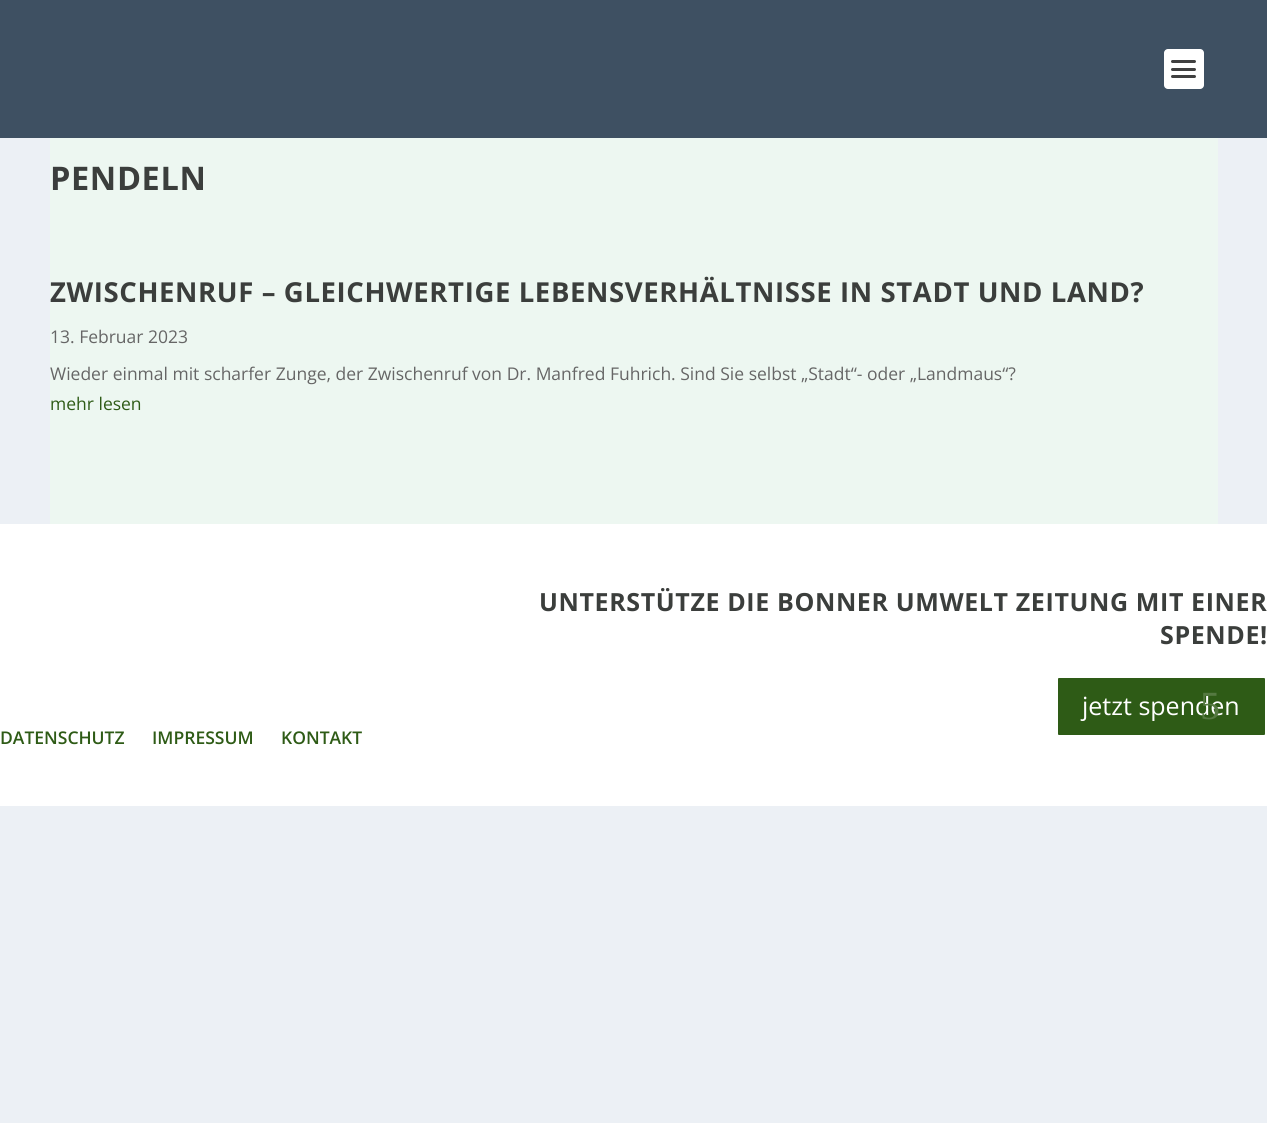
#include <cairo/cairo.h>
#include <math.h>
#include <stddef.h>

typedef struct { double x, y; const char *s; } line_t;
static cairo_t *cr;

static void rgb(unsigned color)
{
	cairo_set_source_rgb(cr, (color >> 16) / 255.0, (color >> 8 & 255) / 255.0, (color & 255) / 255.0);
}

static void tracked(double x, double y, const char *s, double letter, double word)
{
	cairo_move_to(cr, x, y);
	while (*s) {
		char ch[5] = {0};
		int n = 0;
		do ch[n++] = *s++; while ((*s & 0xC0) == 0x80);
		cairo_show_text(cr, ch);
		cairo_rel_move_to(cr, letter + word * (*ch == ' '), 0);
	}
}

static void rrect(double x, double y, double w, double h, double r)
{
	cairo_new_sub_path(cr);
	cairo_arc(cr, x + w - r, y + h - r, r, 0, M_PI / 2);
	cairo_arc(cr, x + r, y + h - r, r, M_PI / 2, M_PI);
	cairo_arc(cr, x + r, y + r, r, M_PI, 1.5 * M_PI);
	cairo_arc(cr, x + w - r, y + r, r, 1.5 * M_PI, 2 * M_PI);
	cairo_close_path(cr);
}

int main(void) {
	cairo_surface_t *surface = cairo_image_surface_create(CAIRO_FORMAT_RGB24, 1267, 1123);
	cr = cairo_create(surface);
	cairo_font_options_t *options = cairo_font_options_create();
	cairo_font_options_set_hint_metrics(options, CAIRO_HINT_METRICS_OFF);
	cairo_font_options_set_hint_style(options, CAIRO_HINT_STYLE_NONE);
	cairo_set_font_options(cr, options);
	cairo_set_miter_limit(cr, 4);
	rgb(0xecf0f5);
	cairo_paint(cr);
	rgb(0x3e5062);
	cairo_rectangle(cr, 0, 0, 1267, 138);
	cairo_fill(cr);
	rgb(0xffffff);
	rrect(1164, 49, 40, 40, 4);
	cairo_fill(cr);
	rgb(0x404040);
	rrect(1171, 60, 25, 3, 1.5);
	cairo_fill(cr);
	rrect(1171, 68, 25, 3, 1.5);
	cairo_fill(cr);
	rrect(1171, 75, 25, 3, 1.5);
	cairo_fill(cr);
	rgb(0xedf7f1);
	cairo_rectangle(cr, 50, 138, 1168, 386);
	cairo_fill(cr);
	rgb(0xffffff);
	cairo_rectangle(cr, 0, 524, 1267, 282);
	cairo_fill(cr);
	rgb(0x2e5b16);
	rrect(1056.5, 676.5, 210, 60, 2.5);
	cairo_fill_preserve(cr);
	rgb(0xffffff);
	cairo_set_line_width(cr, 3);
	cairo_stroke(cr);
	cairo_select_font_face(cr, "Open Sans", CAIRO_FONT_SLANT_NORMAL, CAIRO_FONT_WEIGHT_BOLD);
	cairo_set_font_size(cr, 32.5);
	rgb(0x3b3e3c);
	tracked(50, 190, "PENDELN", 0.62, 0);
	cairo_set_font_size(cr, 27.5);
	tracked(50, 302, "ZWISCHENRUF – GLEICHWERTIGE LEBENSVERHÄLTNISSE IN STADT UND LAND?", 0.62, 0);
	cairo_select_font_face(cr, "Open Sans", CAIRO_FONT_SLANT_NORMAL, CAIRO_FONT_WEIGHT_NORMAL);
	cairo_set_font_size(cr, 17.5);
	rgb(0x666666);
	cairo_move_to(cr, 50, 343);
	cairo_show_text(cr, "13. Februar 2023");
	cairo_move_to(cr, 50, 380);
	cairo_show_text(cr, "Wieder einmal mit scharfer Zunge, der Zwischenruf von Dr. Manfred Fuhrich. Sind Sie selbst „Stadt“- oder „Landmaus“?");
	rgb(0x2e5b16);
	cairo_move_to(cr, 50, 410);
	cairo_show_text(cr, "mehr lesen");
	cairo_select_font_face(cr, "Open Sans", CAIRO_FONT_SLANT_NORMAL, CAIRO_FONT_WEIGHT_BOLD);
	cairo_set_font_size(cr, 25);
	rgb(0x3b3e3c);
	tracked(539, 611, "UNTERSTÜTZE DIE BONNER UMWELT ZEITUNG MIT EINER", 0.62, 0);
	tracked(1160, 644, "SPENDE!", 0.62, 0);
	cairo_select_font_face(cr, "Open Sans", CAIRO_FONT_SLANT_NORMAL, CAIRO_FONT_WEIGHT_NORMAL);
	rgb(0xffffff);
	cairo_move_to(cr, 1082, 715);
	cairo_show_text(cr, "jetzt spenden");
	cairo_select_font_face(cr, "Liberation Serif", CAIRO_FONT_SLANT_NORMAL, CAIRO_FONT_WEIGHT_NORMAL);
	cairo_set_font_size(cr, 40);
	rgb(0x557941);
	cairo_move_to(cr, 1200, 719);
	cairo_show_text(cr, "5");
	cairo_select_font_face(cr, "Open Sans SemiBold", CAIRO_FONT_SLANT_NORMAL, CAIRO_FONT_WEIGHT_NORMAL);
	cairo_set_font_size(cr, 17.5);
	rgb(0x2e5b16);
	{
		static const line_t items[] = {
			{0, 744, "DATENSCHUTZ"},
			{152, 744, "IMPRESSUM"},
			{281, 744, "KONTAKT"},
		};
		for (size_t i = 0; i < sizeof items / sizeof *items; i++) {
			cairo_move_to(cr, items[i].x, items[i].y);
			cairo_show_text(cr, items[i].s);
		}
	}
	cairo_surface_write_to_png(surface, "page.png");
	cairo_font_options_destroy(options);
	cairo_destroy(cr);
	cairo_surface_destroy(surface);
	return 0;
}
